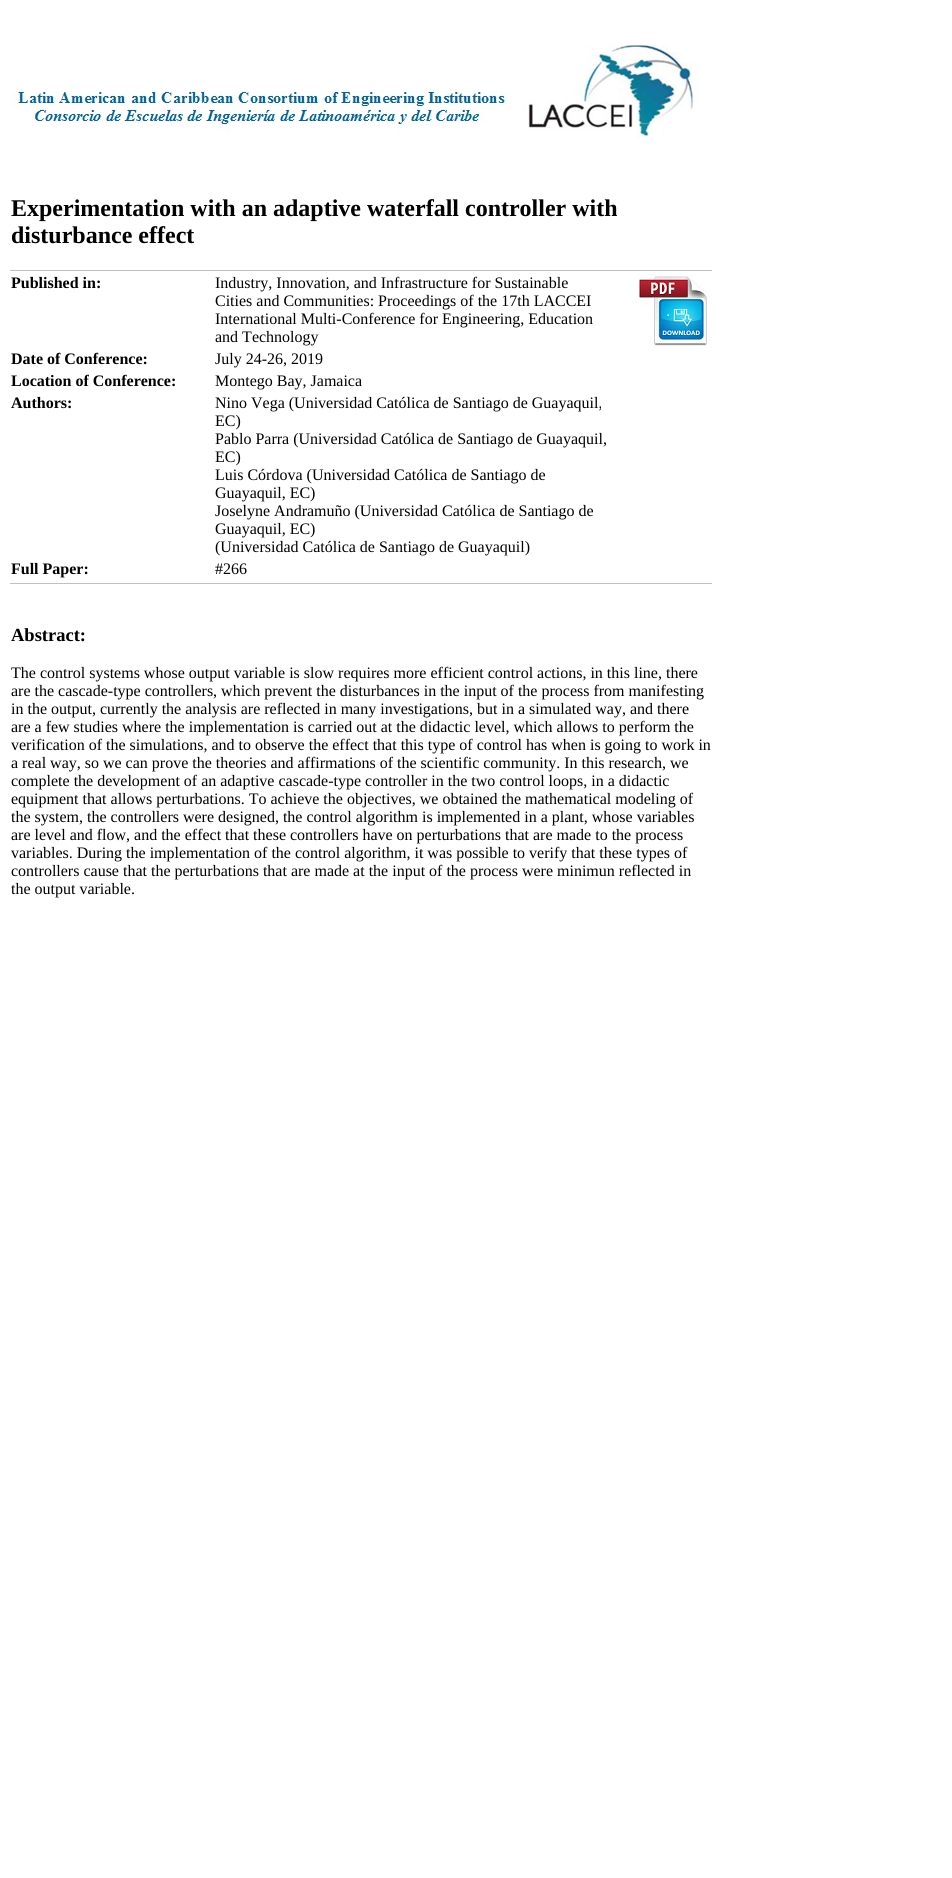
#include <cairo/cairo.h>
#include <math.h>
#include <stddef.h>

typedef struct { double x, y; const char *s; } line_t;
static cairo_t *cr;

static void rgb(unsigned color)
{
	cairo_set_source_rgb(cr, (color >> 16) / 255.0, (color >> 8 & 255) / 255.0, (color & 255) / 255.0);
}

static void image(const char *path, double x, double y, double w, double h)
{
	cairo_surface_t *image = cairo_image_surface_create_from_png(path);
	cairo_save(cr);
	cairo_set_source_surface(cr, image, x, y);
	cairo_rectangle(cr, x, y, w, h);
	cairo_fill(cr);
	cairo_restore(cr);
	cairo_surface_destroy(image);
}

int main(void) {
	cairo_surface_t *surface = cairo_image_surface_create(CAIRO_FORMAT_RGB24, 952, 1878);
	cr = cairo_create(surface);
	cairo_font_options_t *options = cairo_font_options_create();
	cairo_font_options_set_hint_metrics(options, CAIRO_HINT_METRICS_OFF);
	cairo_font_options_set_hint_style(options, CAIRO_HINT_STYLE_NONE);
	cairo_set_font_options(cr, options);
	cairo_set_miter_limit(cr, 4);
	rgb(0xffffff);
	cairo_paint(cr);
	image("img/1.png", 11, 43, 688, 96);
	rgb(0xc0c0c0);
	cairo_rectangle(cr, 10, 270, 702, 1);
	cairo_fill(cr);
	image("img/2.png", 638, 274, 72, 72);
	cairo_rectangle(cr, 10, 583, 702, 1);
	cairo_fill(cr);
	cairo_select_font_face(cr, "Liberation Serif", CAIRO_FONT_SLANT_NORMAL, CAIRO_FONT_WEIGHT_BOLD);
	cairo_set_font_size(cr, 24);
	rgb(0x000000);
	cairo_move_to(cr, 11, 216);
	cairo_show_text(cr, "Experimentation with an adaptive waterfall controller with");
	cairo_move_to(cr, 11, 243);
	cairo_show_text(cr, "disturbance effect");
	cairo_set_font_size(cr, 16);
	cairo_move_to(cr, 11, 288);
	cairo_show_text(cr, "Published in:");
	cairo_select_font_face(cr, "Liberation Serif", CAIRO_FONT_SLANT_NORMAL, CAIRO_FONT_WEIGHT_NORMAL);
	{
		static const line_t items[] = {
			{215, 288, "Industry, Innovation, and Infrastructure for Sustainable"},
			{215, 306, "Cities and Communities: Proceedings of the 17th LACCEI"},
			{215, 324, "International Multi-Conference for Engineering, Education"},
			{215, 342, "and Technology"},
		};
		for (size_t i = 0; i < sizeof items / sizeof *items; i++) {
			cairo_move_to(cr, items[i].x, items[i].y);
			cairo_show_text(cr, items[i].s);
		}
	}
	cairo_select_font_face(cr, "Liberation Serif", CAIRO_FONT_SLANT_NORMAL, CAIRO_FONT_WEIGHT_BOLD);
	cairo_move_to(cr, 11, 364);
	cairo_show_text(cr, "Date of Conference:");
	cairo_select_font_face(cr, "Liberation Serif", CAIRO_FONT_SLANT_NORMAL, CAIRO_FONT_WEIGHT_NORMAL);
	cairo_move_to(cr, 215, 364);
	cairo_show_text(cr, "July 24-26, 2019");
	cairo_select_font_face(cr, "Liberation Serif", CAIRO_FONT_SLANT_NORMAL, CAIRO_FONT_WEIGHT_BOLD);
	cairo_move_to(cr, 11, 386);
	cairo_show_text(cr, "Location of Conference:");
	cairo_select_font_face(cr, "Liberation Serif", CAIRO_FONT_SLANT_NORMAL, CAIRO_FONT_WEIGHT_NORMAL);
	cairo_move_to(cr, 215, 386);
	cairo_show_text(cr, "Montego Bay, Jamaica");
	cairo_select_font_face(cr, "Liberation Serif", CAIRO_FONT_SLANT_NORMAL, CAIRO_FONT_WEIGHT_BOLD);
	cairo_move_to(cr, 11, 408);
	cairo_show_text(cr, "Authors:");
	cairo_select_font_face(cr, "Liberation Serif", CAIRO_FONT_SLANT_NORMAL, CAIRO_FONT_WEIGHT_NORMAL);
	{
		static const line_t items[] = {
			{215, 408, "Nino Vega (Universidad Católica de Santiago de Guayaquil,"},
			{215, 426, "EC)"},
			{215, 444, "Pablo Parra (Universidad Católica de Santiago de Guayaquil,"},
			{215, 462, "EC)"},
			{215, 480, "Luis Córdova (Universidad Católica de Santiago de"},
			{215, 498, "Guayaquil, EC)"},
			{215, 516, "Joselyne Andramuño (Universidad Católica de Santiago de"},
			{215, 534, "Guayaquil, EC)"},
			{215, 552, "(Universidad Católica de Santiago de Guayaquil)"},
		};
		for (size_t i = 0; i < sizeof items / sizeof *items; i++) {
			cairo_move_to(cr, items[i].x, items[i].y);
			cairo_show_text(cr, items[i].s);
		}
	}
	cairo_select_font_face(cr, "Liberation Serif", CAIRO_FONT_SLANT_NORMAL, CAIRO_FONT_WEIGHT_BOLD);
	cairo_move_to(cr, 11, 574);
	cairo_show_text(cr, "Full Paper:");
	cairo_select_font_face(cr, "Liberation Serif", CAIRO_FONT_SLANT_NORMAL, CAIRO_FONT_WEIGHT_NORMAL);
	cairo_move_to(cr, 215, 574);
	cairo_show_text(cr, "#266");
	cairo_select_font_face(cr, "Liberation Serif", CAIRO_FONT_SLANT_NORMAL, CAIRO_FONT_WEIGHT_BOLD);
	cairo_set_font_size(cr, 18.5);
	cairo_move_to(cr, 11, 641);
	cairo_show_text(cr, "Abstract:");
	cairo_select_font_face(cr, "Liberation Serif", CAIRO_FONT_SLANT_NORMAL, CAIRO_FONT_WEIGHT_NORMAL);
	cairo_set_font_size(cr, 16);
	{
		static const line_t items[] = {
			{11, 678, "The control systems whose output variable is slow requires more efficient control actions, in this line, there"},
			{11, 696, "are the cascade-type controllers, which prevent the disturbances in the input of the process from manifesting"},
			{11, 714, "in the output, currently the analysis are reflected in many investigations, but in a simulated way, and there"},
			{11, 732, "are a few studies where the implementation is carried out at the didactic level, which allows to perform the"},
			{11, 750, "verification of the simulations, and to observe the effect that this type of control has when is going to work in"},
			{11, 768, "a real way, so we can prove the theories and affirmations of the scientific community. In this research, we"},
			{11, 786, "complete the development of an adaptive cascade-type controller in the two control loops, in a didactic"},
			{11, 804, "equipment that allows perturbations. To achieve the objectives, we obtained the mathematical modeling of"},
			{11, 822, "the system, the controllers were designed, the control algorithm is implemented in a plant, whose variables"},
			{11, 840, "are level and flow, and the effect that these controllers have on perturbations that are made to the process"},
			{11, 858, "variables. During the implementation of the control algorithm, it was possible to verify that these types of"},
			{11, 876, "controllers cause that the perturbations that are made at the input of the process were minimun reflected in"},
			{11, 894, "the output variable."},
		};
		for (size_t i = 0; i < sizeof items / sizeof *items; i++) {
			cairo_move_to(cr, items[i].x, items[i].y);
			cairo_show_text(cr, items[i].s);
		}
	}
	cairo_surface_write_to_png(surface, "page.png");
	cairo_font_options_destroy(options);
	cairo_destroy(cr);
	cairo_surface_destroy(surface);
	return 0;
}
